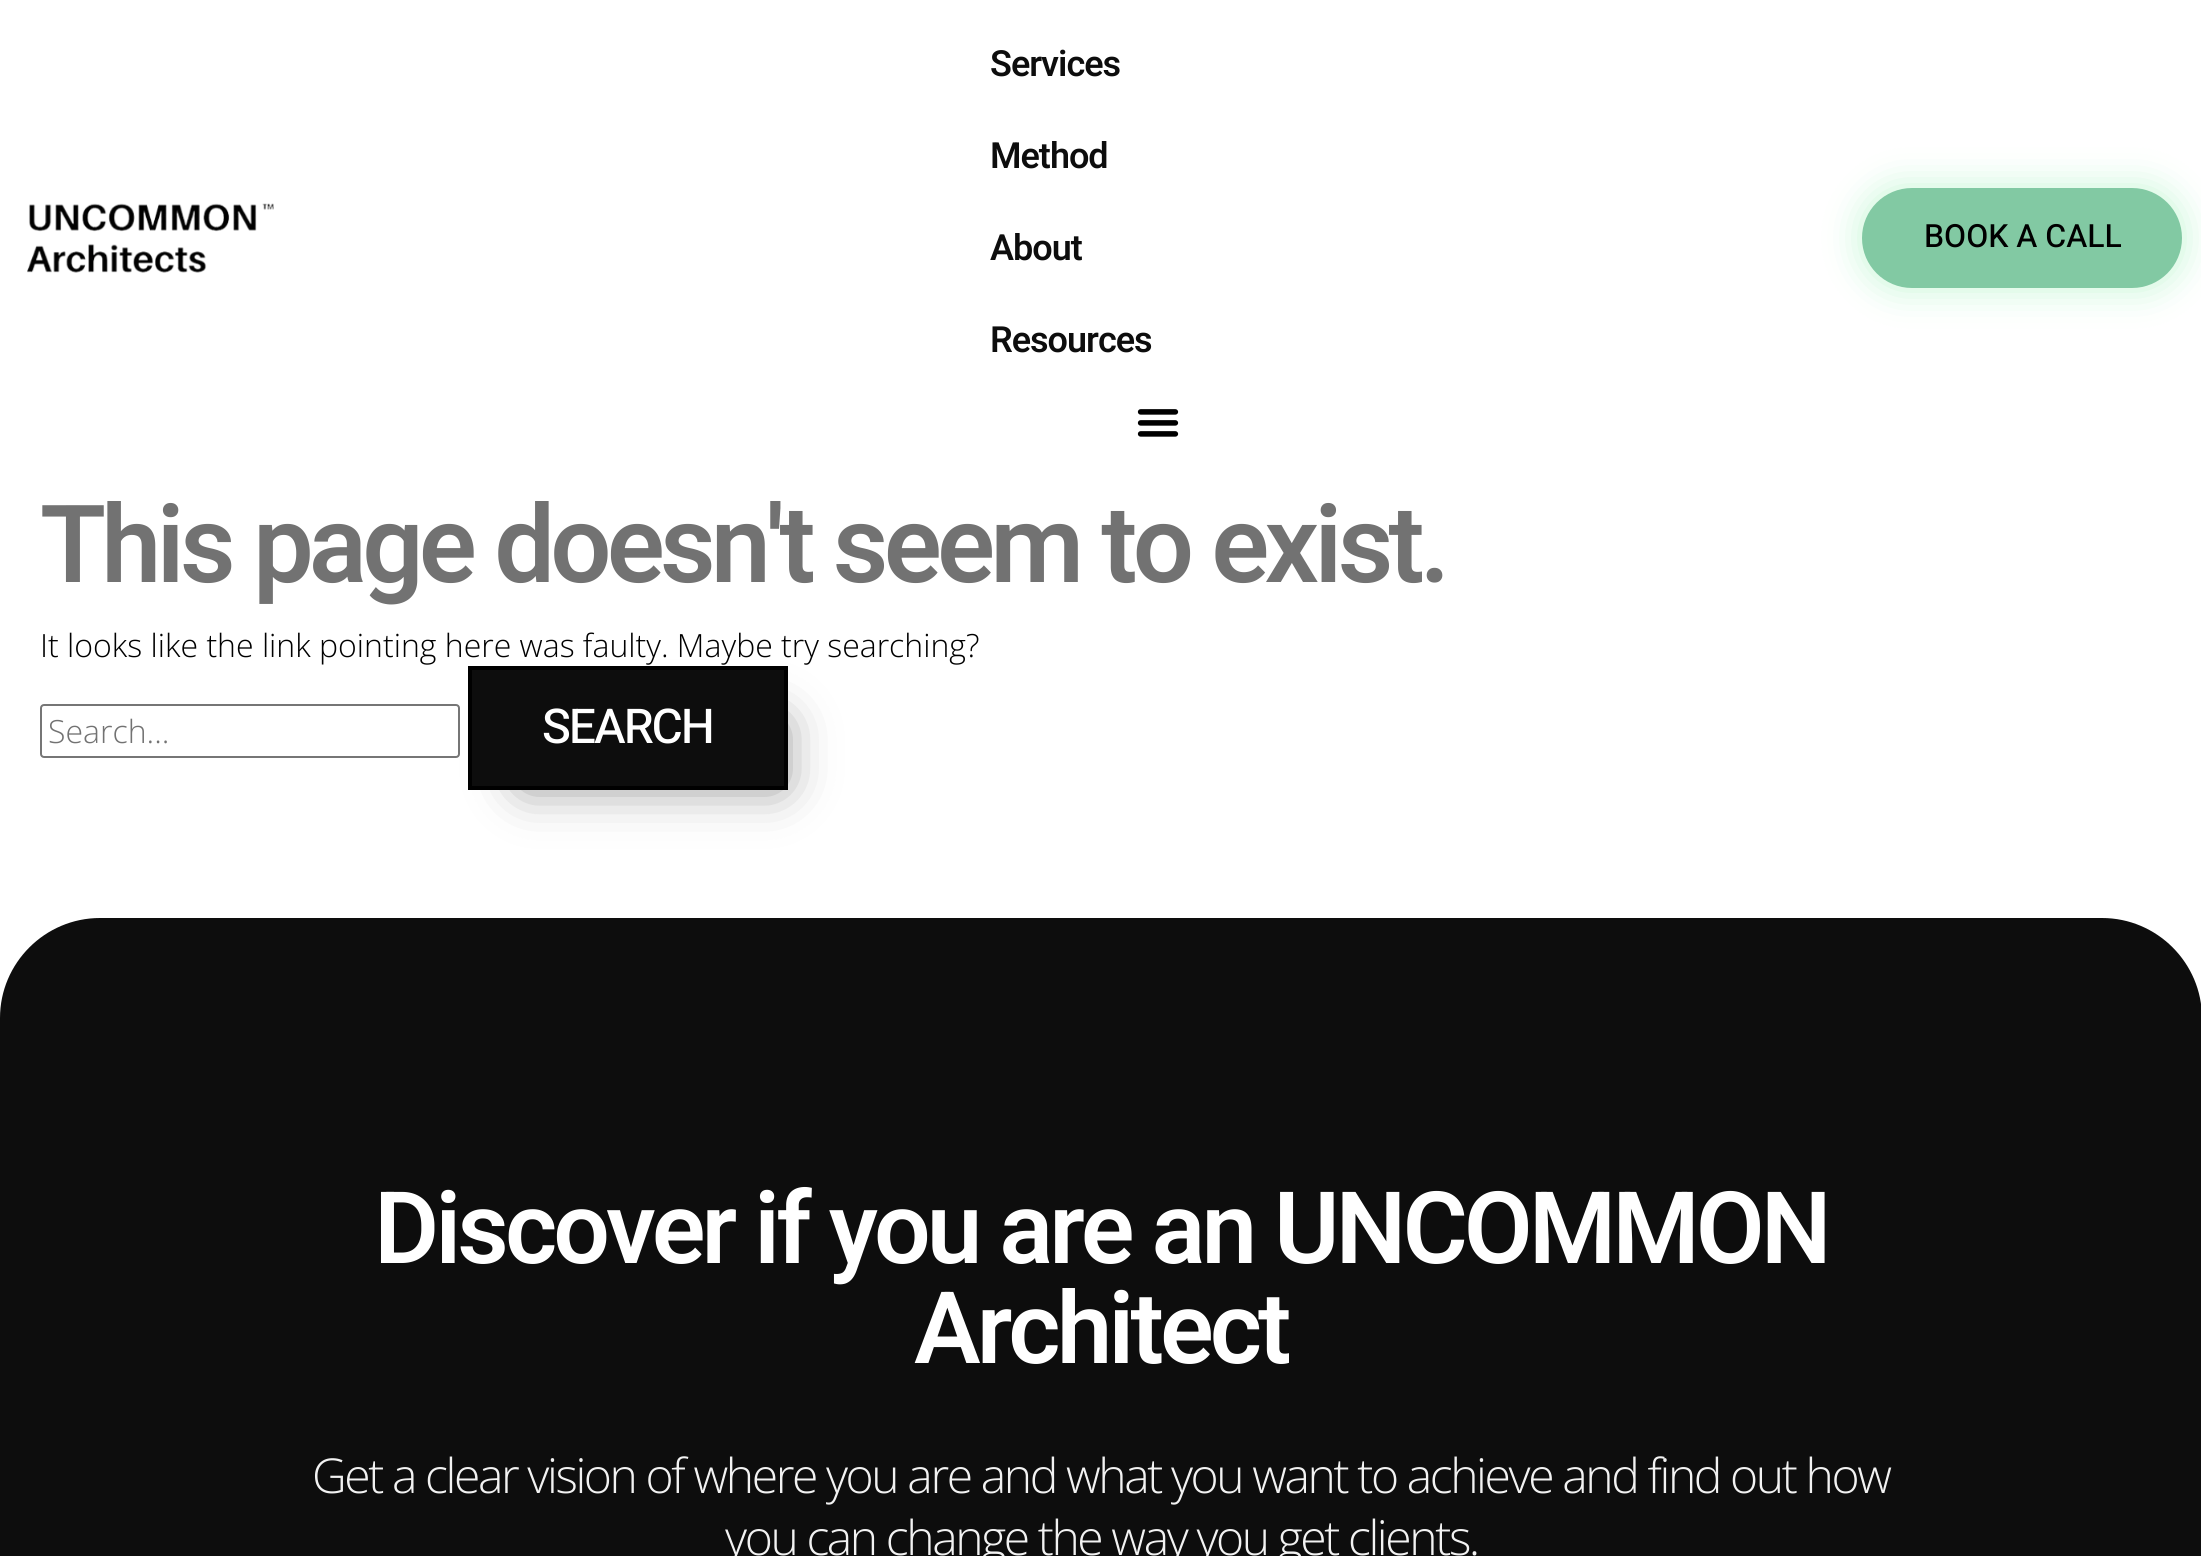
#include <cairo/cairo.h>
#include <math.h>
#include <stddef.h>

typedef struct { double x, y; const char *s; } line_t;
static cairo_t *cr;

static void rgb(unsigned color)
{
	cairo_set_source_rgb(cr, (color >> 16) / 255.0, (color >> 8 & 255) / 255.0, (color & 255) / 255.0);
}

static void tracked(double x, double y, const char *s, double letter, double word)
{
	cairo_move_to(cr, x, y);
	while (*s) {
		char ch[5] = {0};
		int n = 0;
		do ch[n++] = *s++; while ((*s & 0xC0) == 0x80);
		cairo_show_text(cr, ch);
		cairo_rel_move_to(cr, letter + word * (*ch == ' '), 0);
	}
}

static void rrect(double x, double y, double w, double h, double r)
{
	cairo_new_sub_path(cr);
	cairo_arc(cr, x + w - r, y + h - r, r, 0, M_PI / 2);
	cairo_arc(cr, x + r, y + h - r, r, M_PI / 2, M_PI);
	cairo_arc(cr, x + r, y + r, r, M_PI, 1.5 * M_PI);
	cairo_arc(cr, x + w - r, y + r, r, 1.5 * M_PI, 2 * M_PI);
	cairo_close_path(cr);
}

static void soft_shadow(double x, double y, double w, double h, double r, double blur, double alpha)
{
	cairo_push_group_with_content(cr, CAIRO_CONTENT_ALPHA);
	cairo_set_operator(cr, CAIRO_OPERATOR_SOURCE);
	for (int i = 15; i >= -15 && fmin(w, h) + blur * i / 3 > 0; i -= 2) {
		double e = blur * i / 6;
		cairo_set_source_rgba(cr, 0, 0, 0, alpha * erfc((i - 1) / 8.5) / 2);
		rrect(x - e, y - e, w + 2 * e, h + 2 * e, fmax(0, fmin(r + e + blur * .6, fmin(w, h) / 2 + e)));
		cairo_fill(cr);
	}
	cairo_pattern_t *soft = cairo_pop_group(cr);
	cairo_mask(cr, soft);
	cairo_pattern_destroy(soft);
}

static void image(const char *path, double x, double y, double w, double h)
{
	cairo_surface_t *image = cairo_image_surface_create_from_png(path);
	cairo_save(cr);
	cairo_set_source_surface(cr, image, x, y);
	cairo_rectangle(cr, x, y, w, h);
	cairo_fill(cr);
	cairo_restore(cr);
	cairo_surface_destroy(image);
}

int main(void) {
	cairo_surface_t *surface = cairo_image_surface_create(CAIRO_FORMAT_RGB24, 2201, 1556);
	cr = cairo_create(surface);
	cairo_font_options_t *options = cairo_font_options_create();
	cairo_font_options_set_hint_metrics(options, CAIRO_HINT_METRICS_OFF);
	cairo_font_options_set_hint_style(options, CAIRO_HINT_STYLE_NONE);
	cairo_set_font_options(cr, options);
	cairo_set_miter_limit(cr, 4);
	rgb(0xffffff);
	cairo_paint(cr);
	image("img/1.png", 27, 203, 247, 70);
	image("img/2.png", 1137, 409, 42, 28);
	rgb(0x86eca7);
	soft_shadow(1860, 186, 324, 104, 52, 18, 0.45);
	rgb(0x82c9a3);
	rrect(1862, 188, 320, 100, 50);
	cairo_fill(cr);
	rrect(41, 705, 418, 52, 3);
	rgb(0x767676);
	cairo_stroke(cr);
	rgb(0x000000);
	soft_shadow(524, 724, 256, 60, 0, 26, 0.5);
	rgb(0x0d0d0d);
	cairo_rectangle(cr, 470, 668, 316, 120);
	cairo_fill_preserve(cr);
	rgb(0x000000);
	cairo_set_line_width(cr, 4);
	cairo_stroke(cr);
	rgb(0x0d0d0d);
	cairo_new_path(cr);
	cairo_move_to(cr, 100, 918);
	cairo_line_to(cr, 2102, 918);
	cairo_curve_to(cr, 2157, 918, 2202, 963, 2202, 1018);
	cairo_line_to(cr, 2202, 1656);
	cairo_line_to(cr, 0, 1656);
	cairo_line_to(cr, 0, 1018);
	cairo_curve_to(cr, 0, 963, 45, 918, 100, 918);
	cairo_close_path(cr);
	cairo_fill(cr);
	cairo_select_font_face(cr, "Heebo SemiBold", CAIRO_FONT_SLANT_NORMAL, CAIRO_FONT_WEIGHT_NORMAL);
	cairo_set_font_size(cr, 36);
	{
		static const line_t items[] = {
			{990, 76, "Services"},
			{990, 168, "Method"},
			{990, 260, "About"},
			{990, 352, "Resources"},
		};
		for (size_t i = 0; i < sizeof items / sizeof *items; i++) {
			tracked(items[i].x, items[i].y, items[i].s, -1, 0);
		}
	}
	cairo_select_font_face(cr, "Heebo Medium", CAIRO_FONT_SLANT_NORMAL, CAIRO_FONT_WEIGHT_NORMAL);
	cairo_set_font_size(cr, 32);
	rgb(0x000000);
	cairo_move_to(cr, 1924, 247);
	cairo_show_text(cr, "BOOK A CALL");
	cairo_select_font_face(cr, "Heebo SemiBold", CAIRO_FONT_SLANT_NORMAL, CAIRO_FONT_WEIGHT_NORMAL);
	cairo_set_font_size(cr, 108);
	rgb(0x727272);
	tracked(40, 582, "This page doesn't seem to exist.", -4.8, 0);
	cairo_select_font_face(cr, "Open Sans Light", CAIRO_FONT_SLANT_NORMAL, CAIRO_FONT_WEIGHT_NORMAL);
	cairo_set_font_size(cr, 32);
	rgb(0x000000);
	cairo_move_to(cr, 40, 657);
	cairo_show_text(cr, "It looks like the link pointing here was faulty. Maybe try searching?");
	rgb(0x727272);
	cairo_move_to(cr, 48, 743);
	cairo_show_text(cr, "Search...");
	cairo_select_font_face(cr, "Heebo Medium", CAIRO_FONT_SLANT_NORMAL, CAIRO_FONT_WEIGHT_NORMAL);
	cairo_set_font_size(cr, 48);
	rgb(0xffffff);
	tracked(542, 743, "SEARCH", -2, 0);
	cairo_select_font_face(cr, "Heebo SemiBold", CAIRO_FONT_SLANT_NORMAL, CAIRO_FONT_WEIGHT_NORMAL);
	cairo_set_font_size(cr, 100);
	tracked(374, 1263, "Discover if you are an UNCOMMON", -4, 0);
	tracked(914, 1363, "Architect", -4, 0);
	cairo_select_font_face(cr, "Open Sans Light", CAIRO_FONT_SLANT_NORMAL, CAIRO_FONT_WEIGHT_NORMAL);
	cairo_set_font_size(cr, 48);
	rgb(0xf2f2f2);
	tracked(312, 1493, "Get a clear vision of where you are and what you want to achieve and find out how", -2.4, 0);
	tracked(725, 1555, "you can change the way you get clients.", -2.4, 0);
	cairo_surface_write_to_png(surface, "page.png");
	cairo_font_options_destroy(options);
	cairo_destroy(cr);
	cairo_surface_destroy(surface);
	return 0;
}
